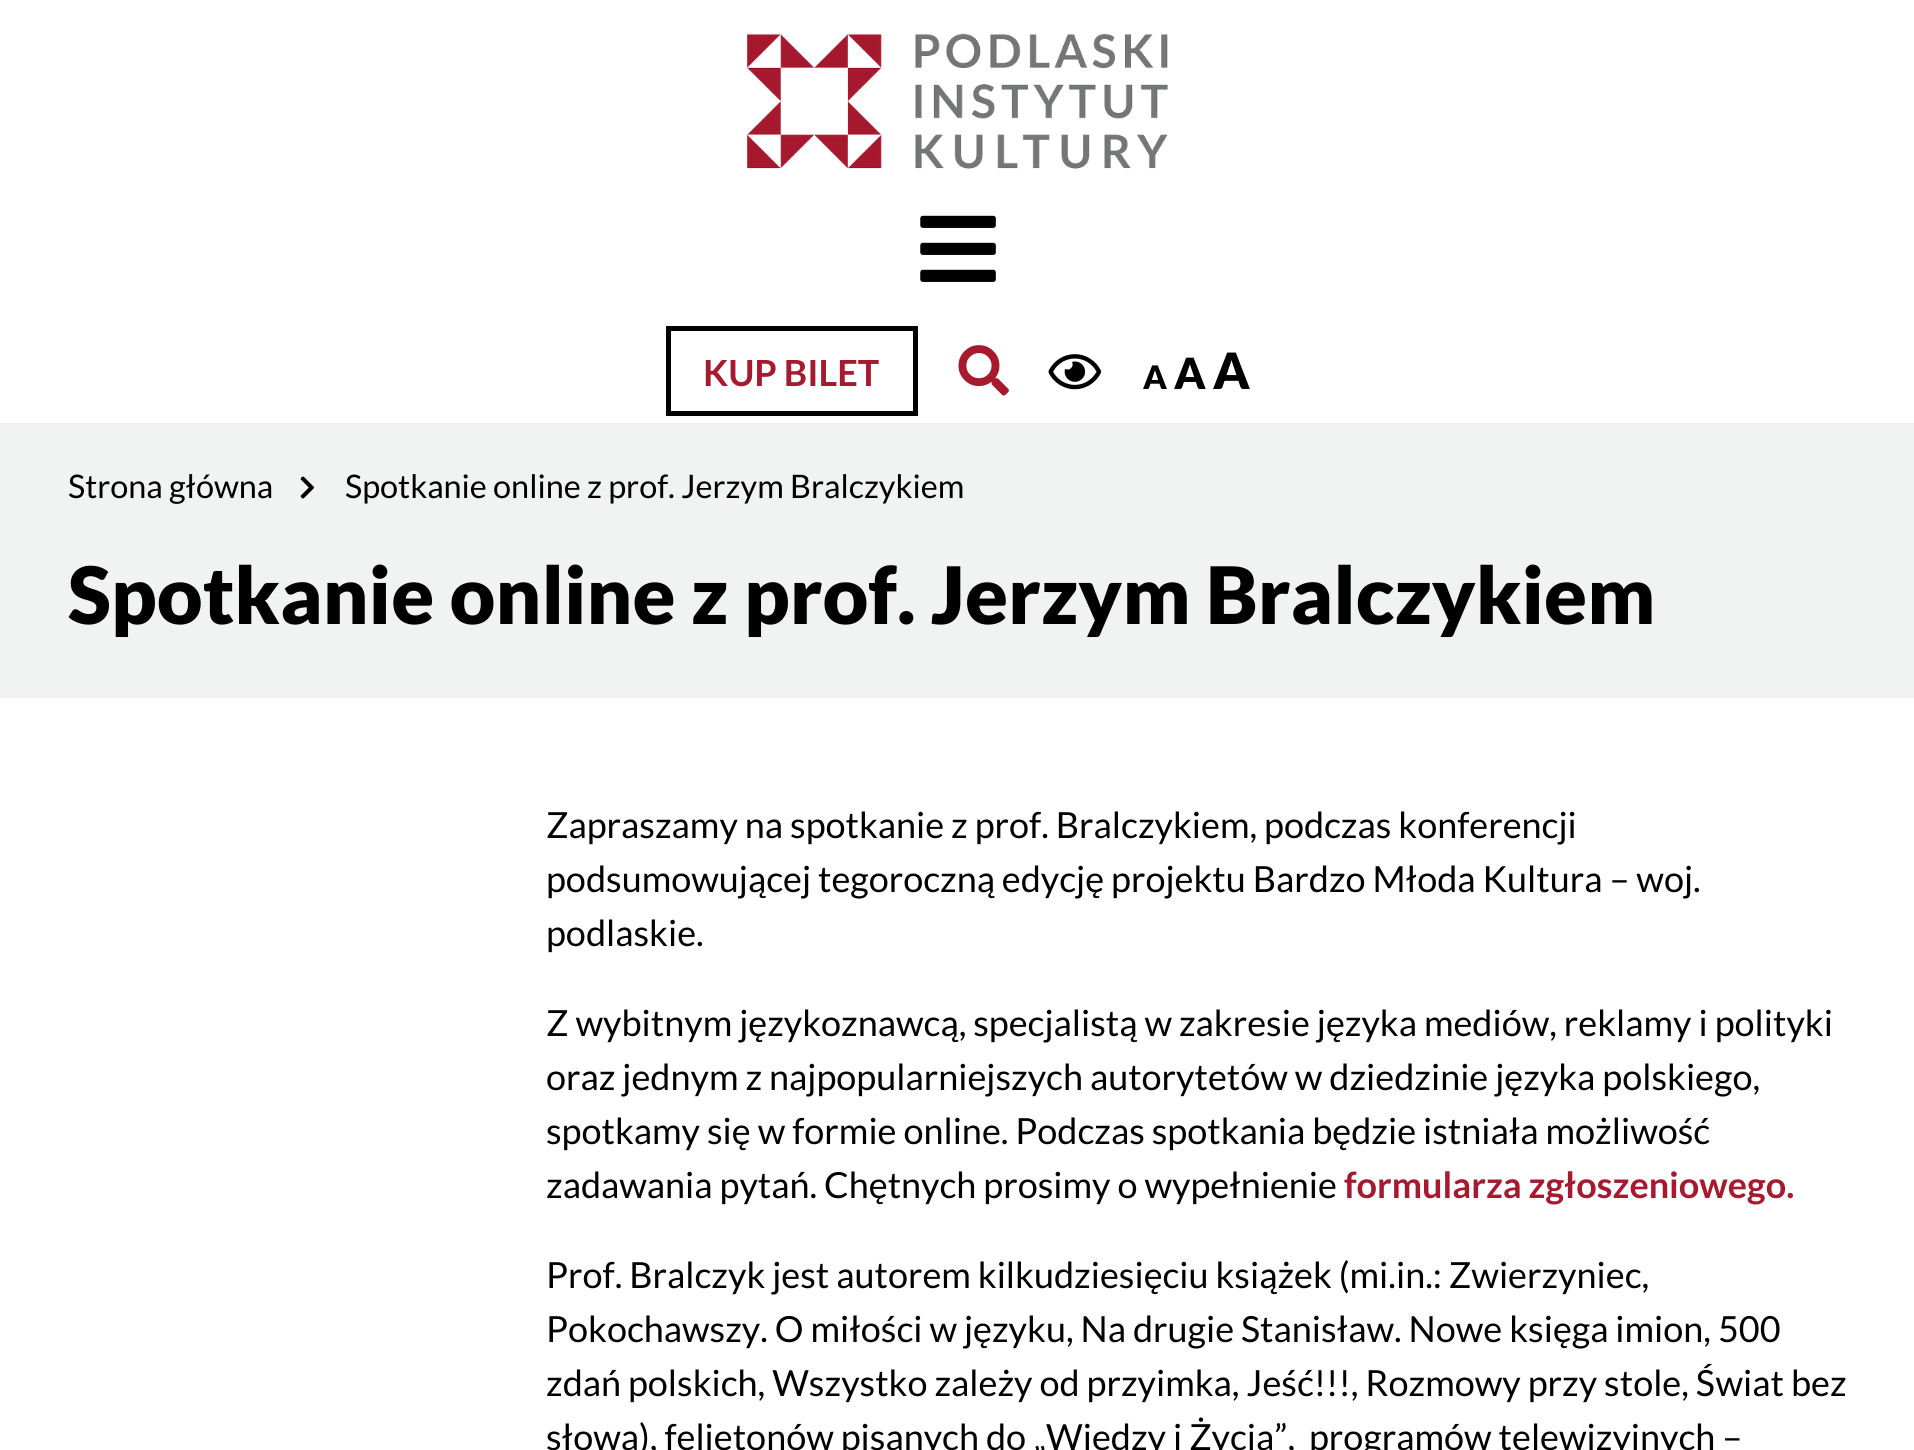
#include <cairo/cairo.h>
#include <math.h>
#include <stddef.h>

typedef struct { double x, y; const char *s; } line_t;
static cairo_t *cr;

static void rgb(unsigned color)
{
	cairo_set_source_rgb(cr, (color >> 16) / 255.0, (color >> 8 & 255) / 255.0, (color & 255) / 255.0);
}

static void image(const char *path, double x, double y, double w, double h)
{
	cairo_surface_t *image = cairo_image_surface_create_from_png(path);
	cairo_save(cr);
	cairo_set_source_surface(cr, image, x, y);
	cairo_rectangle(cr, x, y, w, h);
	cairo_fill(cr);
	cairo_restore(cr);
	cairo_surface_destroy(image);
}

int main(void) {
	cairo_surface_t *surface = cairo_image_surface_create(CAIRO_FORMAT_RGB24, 1914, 1450);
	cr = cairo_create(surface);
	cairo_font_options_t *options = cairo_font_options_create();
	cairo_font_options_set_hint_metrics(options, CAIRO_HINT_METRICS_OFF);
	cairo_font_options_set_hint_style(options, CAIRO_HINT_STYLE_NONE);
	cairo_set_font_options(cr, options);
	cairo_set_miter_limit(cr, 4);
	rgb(0xf1f2f2);
	cairo_paint(cr);
	rgb(0xffffff);
	cairo_rectangle(cr, 0, 0, 1914, 423);
	cairo_fill(cr);
	image("img/1.png", 747, 33, 421, 136);
	image("img/2.png", 920, 215, 76, 67);
	cairo_rectangle(cr, 668.5, 328.5, 247, 85);
	rgb(0x000000);
	cairo_set_line_width(cr, 5);
	cairo_stroke(cr);
	image("img/3.png", 958, 345, 51, 51);
	image("img/4.png", 1048, 354, 54, 36);
	image("img/5.png", 300, 476, 15, 23);
	rgb(0xffffff);
	cairo_rectangle(cr, 0, 698, 1914, 752);
	cairo_fill(cr);
	cairo_select_font_face(cr, "Lato", CAIRO_FONT_SLANT_NORMAL, CAIRO_FONT_WEIGHT_BOLD);
	cairo_set_font_size(cr, 36);
	rgb(0xa6192e);
	cairo_move_to(cr, 703, 386);
	cairo_show_text(cr, "KUP BILET");
	cairo_select_font_face(cr, "Lato Black", CAIRO_FONT_SLANT_NORMAL, CAIRO_FONT_WEIGHT_NORMAL);
	cairo_set_font_size(cr, 32.4);
	rgb(0x000000);
	cairo_move_to(cr, 1143, 389);
	cairo_show_text(cr, "A");
	cairo_set_font_size(cr, 43);
	cairo_move_to(cr, 1174, 389);
	cairo_show_text(cr, "A");
	cairo_set_font_size(cr, 50);
	cairo_move_to(cr, 1213, 389);
	cairo_show_text(cr, "A");
	cairo_select_font_face(cr, "Lato", CAIRO_FONT_SLANT_NORMAL, CAIRO_FONT_WEIGHT_NORMAL);
	cairo_set_font_size(cr, 32.4);
	cairo_move_to(cr, 68, 498);
	cairo_show_text(cr, "Strona główna");
	cairo_move_to(cr, 345, 498);
	cairo_show_text(cr, "Spotkanie online z prof. Jerzym Bralczykiem");
	cairo_select_font_face(cr, "Lato Black", CAIRO_FONT_SLANT_NORMAL, CAIRO_FONT_WEIGHT_NORMAL);
	cairo_set_font_size(cr, 79.2);
	cairo_move_to(cr, 68, 624);
	cairo_show_text(cr, "Spotkanie online z prof. Jerzym Bralczykiem");
	cairo_select_font_face(cr, "Lato", CAIRO_FONT_SLANT_NORMAL, CAIRO_FONT_WEIGHT_NORMAL);
	cairo_set_font_size(cr, 36);
	{
		static const line_t items[] = {
			{546, 838, "Zapraszamy na spotkanie z prof. Bralczykiem, podczas konferencji"},
			{546, 892, "podsumowującej tegoroczną edycję projektu Bardzo Młoda Kultura – woj."},
			{546, 946, "podlaskie."},
			{546, 1036, "Z wybitnym językoznawcą, specjalistą w zakresie języka mediów, reklamy i polityki"},
			{546, 1090, "oraz jednym z najpopularniejszych autorytetów w dziedzinie języka polskiego,"},
			{546, 1144, "spotkamy się w formie online. Podczas spotkania będzie istniała możliwość"},
			{546, 1198, "zadawania pytań. Chętnych prosimy o wypełnienie"},
		};
		for (size_t i = 0; i < sizeof items / sizeof *items; i++) {
			cairo_move_to(cr, items[i].x, items[i].y);
			cairo_show_text(cr, items[i].s);
		}
	}
	cairo_select_font_face(cr, "Lato", CAIRO_FONT_SLANT_NORMAL, CAIRO_FONT_WEIGHT_BOLD);
	rgb(0xa6192e);
	cairo_move_to(cr, 1344, 1198);
	cairo_show_text(cr, "formularza zgłoszeniowego.");
	cairo_select_font_face(cr, "Lato", CAIRO_FONT_SLANT_NORMAL, CAIRO_FONT_WEIGHT_NORMAL);
	rgb(0x000000);
	{
		static const line_t items[] = {
			{546, 1288, "Prof. Bralczyk jest autorem kilkudziesięciu książek (mi.in.: Zwierzyniec,"},
			{546, 1342, "Pokochawszy. O miłości w języku, Na drugie Stanisław. Nowe księga imion, 500"},
			{546, 1396, "zdań polskich, Wszystko zależy od przyimka, Jeść!!!, Rozmowy przy stole, Świat bez"},
			{546, 1450, "słowa), felietonów pisanych do „Wiedzy i Życia”,  programów telewizyjnych –"},
		};
		for (size_t i = 0; i < sizeof items / sizeof *items; i++) {
			cairo_move_to(cr, items[i].x, items[i].y);
			cairo_show_text(cr, items[i].s);
		}
	}
	cairo_surface_write_to_png(surface, "page.png");
	cairo_font_options_destroy(options);
	cairo_destroy(cr);
	cairo_surface_destroy(surface);
	return 0;
}
